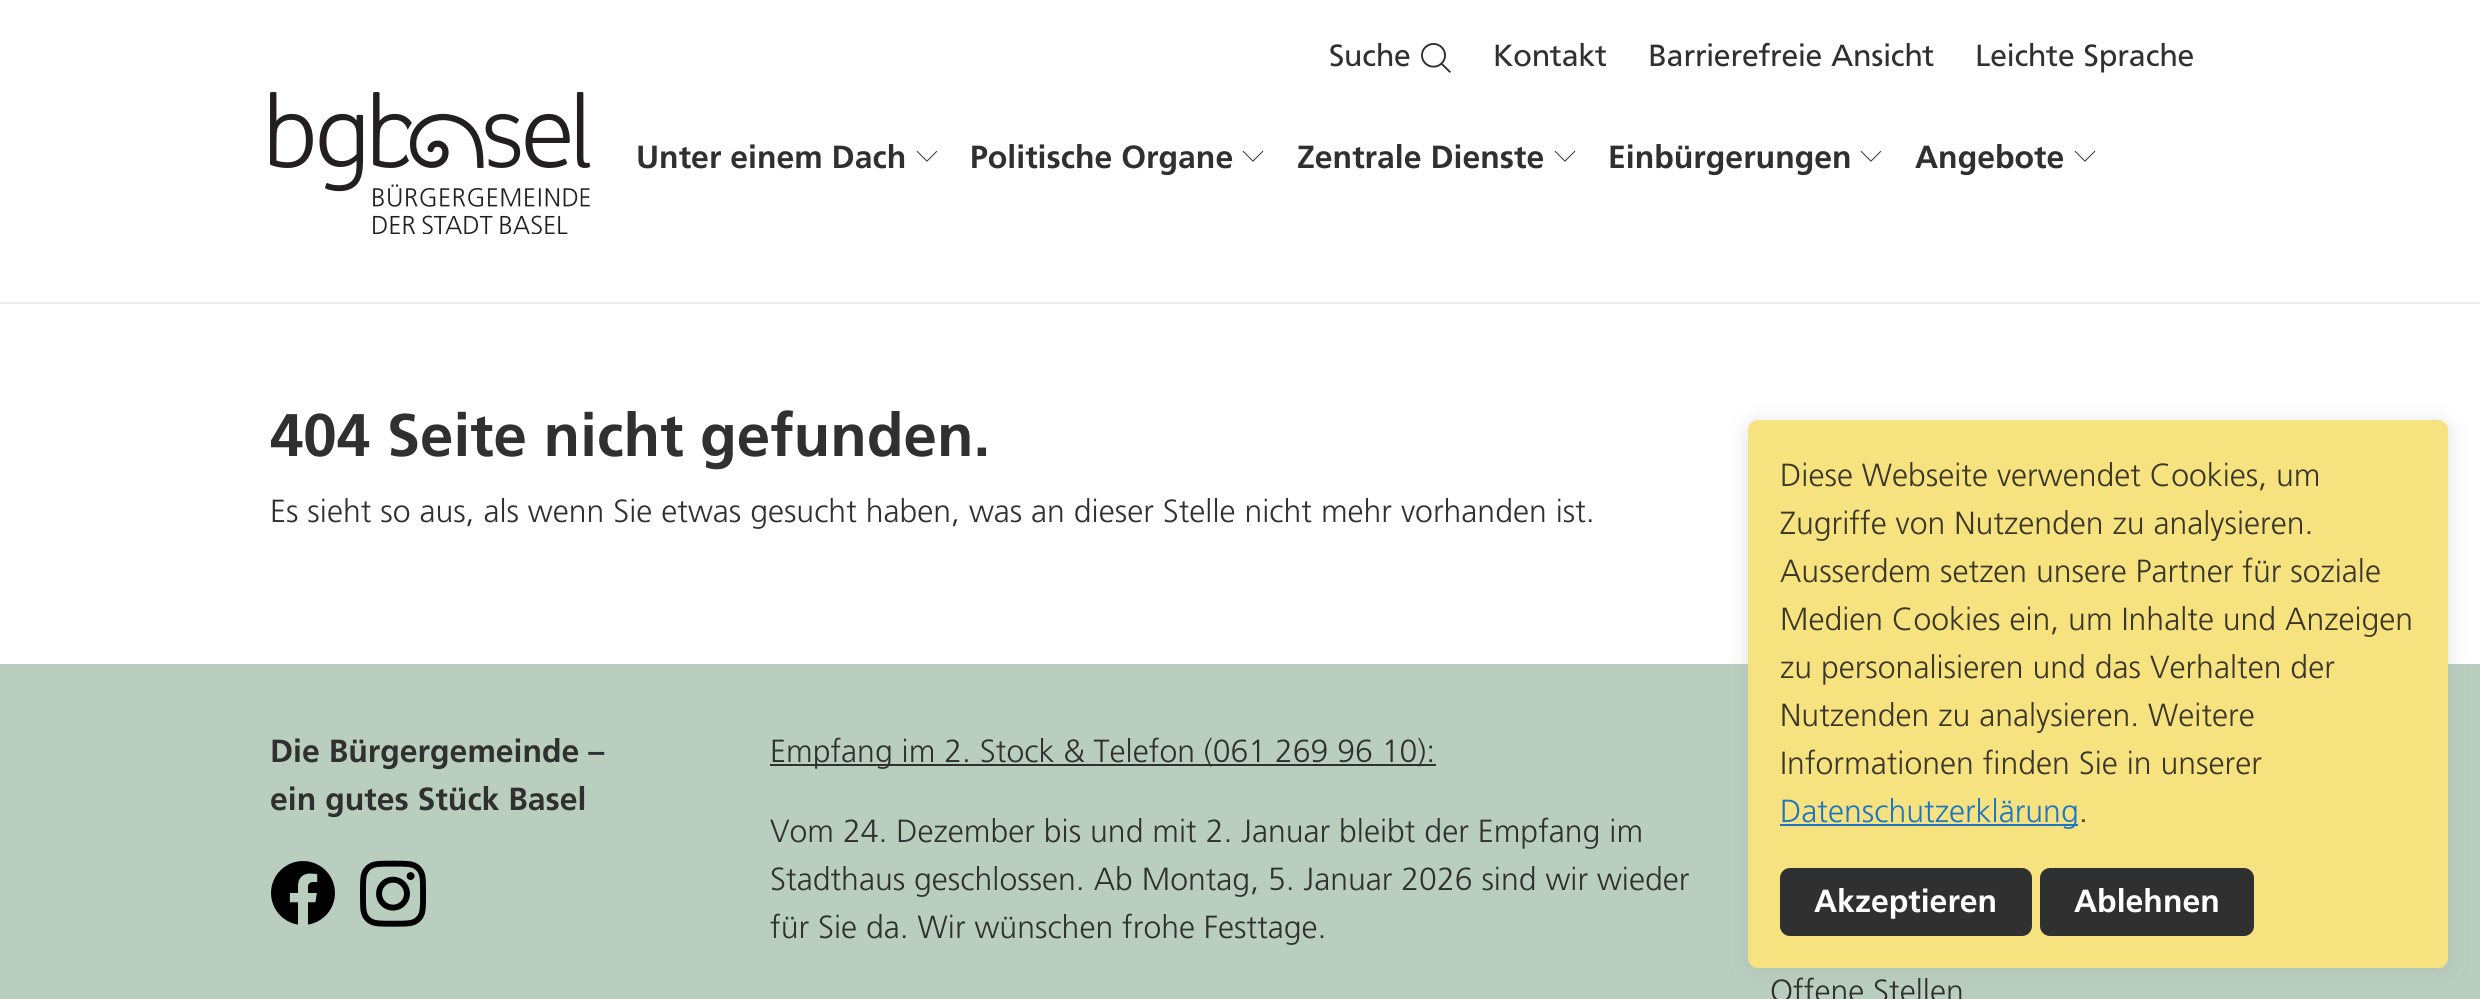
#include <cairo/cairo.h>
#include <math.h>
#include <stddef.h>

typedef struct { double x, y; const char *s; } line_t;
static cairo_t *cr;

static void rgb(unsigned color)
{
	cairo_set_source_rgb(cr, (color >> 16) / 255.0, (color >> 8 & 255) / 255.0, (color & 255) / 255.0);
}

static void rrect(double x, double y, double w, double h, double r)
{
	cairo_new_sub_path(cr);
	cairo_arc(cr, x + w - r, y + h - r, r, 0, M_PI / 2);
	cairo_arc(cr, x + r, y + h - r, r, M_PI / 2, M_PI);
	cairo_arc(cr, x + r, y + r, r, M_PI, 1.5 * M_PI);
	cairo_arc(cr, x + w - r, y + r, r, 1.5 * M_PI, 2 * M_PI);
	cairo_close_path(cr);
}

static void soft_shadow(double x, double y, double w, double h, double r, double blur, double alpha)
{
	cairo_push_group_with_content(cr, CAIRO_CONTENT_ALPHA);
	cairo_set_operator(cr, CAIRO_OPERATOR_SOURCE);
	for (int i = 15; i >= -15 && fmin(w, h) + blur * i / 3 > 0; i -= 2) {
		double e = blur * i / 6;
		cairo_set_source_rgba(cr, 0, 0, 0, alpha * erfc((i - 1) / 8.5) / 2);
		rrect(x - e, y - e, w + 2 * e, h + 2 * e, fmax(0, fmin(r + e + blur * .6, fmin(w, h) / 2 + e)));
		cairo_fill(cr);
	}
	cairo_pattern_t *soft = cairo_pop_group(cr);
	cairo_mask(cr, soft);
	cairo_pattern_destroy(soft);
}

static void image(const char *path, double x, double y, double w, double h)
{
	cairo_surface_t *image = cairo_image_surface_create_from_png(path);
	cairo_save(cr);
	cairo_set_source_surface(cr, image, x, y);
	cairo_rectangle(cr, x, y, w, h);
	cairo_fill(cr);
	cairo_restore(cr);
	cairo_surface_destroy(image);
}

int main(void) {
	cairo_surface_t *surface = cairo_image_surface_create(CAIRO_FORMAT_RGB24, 2480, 999);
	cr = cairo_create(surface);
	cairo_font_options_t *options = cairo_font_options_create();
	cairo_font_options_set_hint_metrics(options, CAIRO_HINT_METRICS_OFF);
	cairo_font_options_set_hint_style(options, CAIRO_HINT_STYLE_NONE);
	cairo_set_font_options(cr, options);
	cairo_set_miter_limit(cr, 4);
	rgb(0xffffff);
	cairo_paint(cr);
	rgb(0xeaeaea);
	cairo_rectangle(cr, 0, 302, 2480, 2);
	cairo_fill(cr);
	image("img/1.png", 1421, 43, 30, 30);
	image("img/2.png", 270, 92, 320, 142);
	image("img/3.png", 916, 150, 22, 12);
	image("img/3.png", 1242, 150, 22, 12);
	image("img/3.png", 1554, 150, 22, 12);
	image("img/3.png", 1860, 150, 22, 12);
	image("img/3.png", 2074, 150, 22, 12);
	rgb(0xb9cebf);
	cairo_rectangle(cr, 0, 664, 2480, 335);
	cairo_fill(cr);
	image("img/4.png", 271, 861, 64, 64);
	image("img/5.png", 360, 860, 66, 67);
	rgb(0x303030);
	cairo_rectangle(cr, 770, 764, 666, 2);
	cairo_fill(cr);
	rgb(0xadadad);
	soft_shadow(1748, 424, 700, 548, 10, 10, 0.4);
	rgb(0xf6e27f);
	rrect(1748, 420, 700, 548, 10);
	cairo_fill(cr);
	rgb(0x1e75c5);
	cairo_rectangle(cr, 1780, 824, 298, 2);
	cairo_fill(cr);
	rgb(0x303030);
	rrect(1780, 868, 252, 68, 10);
	cairo_fill(cr);
	rrect(2040, 868, 214, 68, 10);
	cairo_fill(cr);
	cairo_select_font_face(cr, "Frutiger", CAIRO_FONT_SLANT_NORMAL, CAIRO_FONT_WEIGHT_NORMAL);
	cairo_set_font_size(cr, 32);
	{
		static const line_t items[] = {
			{1329, 66, "Suche"},
			{1493, 66, "Kontakt"},
			{1648, 66, "Barrierefreie Ansicht"},
			{1975, 66, "Leichte Sprache"},
		};
		for (size_t i = 0; i < sizeof items / sizeof *items; i++) {
			cairo_move_to(cr, items[i].x, items[i].y);
			cairo_show_text(cr, items[i].s);
		}
	}
	cairo_select_font_face(cr, "Frutiger", CAIRO_FONT_SLANT_NORMAL, CAIRO_FONT_WEIGHT_BOLD);
	{
		static const line_t items[] = {
			{636, 168, "Unter einem Dach"},
			{970, 168, "Politische Organe"},
			{1297, 168, "Zentrale Dienste"},
			{1608, 168, "Einbürgerungen"},
			{1915, 168, "Angebote"},
		};
		for (size_t i = 0; i < sizeof items / sizeof *items; i++) {
			cairo_move_to(cr, items[i].x, items[i].y);
			cairo_show_text(cr, items[i].s);
		}
	}
	cairo_set_font_size(cr, 60);
	cairo_move_to(cr, 270, 456);
	cairo_show_text(cr, "404 Seite nicht gefunden.");
	cairo_select_font_face(cr, "Frutiger Light", CAIRO_FONT_SLANT_NORMAL, CAIRO_FONT_WEIGHT_NORMAL);
	cairo_set_font_size(cr, 32);
	cairo_move_to(cr, 270, 522);
	cairo_show_text(cr, "Es sieht so aus, als wenn Sie etwas gesucht haben, was an dieser Stelle nicht mehr vorhanden ist.");
	cairo_select_font_face(cr, "Frutiger", CAIRO_FONT_SLANT_NORMAL, CAIRO_FONT_WEIGHT_BOLD);
	cairo_move_to(cr, 270, 762);
	cairo_show_text(cr, "Die Bürgergemeinde –");
	cairo_move_to(cr, 270, 810);
	cairo_show_text(cr, "ein gutes Stück Basel");
	cairo_select_font_face(cr, "Frutiger Light", CAIRO_FONT_SLANT_NORMAL, CAIRO_FONT_WEIGHT_NORMAL);
	{
		static const line_t items[] = {
			{770, 762, "Empfang im 2. Stock & Telefon (061 269 96 10):"},
			{770, 842, "Vom 24. Dezember bis und mit 2. Januar bleibt der Empfang im"},
			{770, 890, "Stadthaus geschlossen. Ab Montag, 5. Januar 2026 sind wir wieder"},
			{770, 938, "für Sie da. Wir wünschen frohe Festtage."},
			{1770, 1002, "Offene Stellen"},
		};
		for (size_t i = 0; i < sizeof items / sizeof *items; i++) {
			cairo_move_to(cr, items[i].x, items[i].y);
			cairo_show_text(cr, items[i].s);
		}
	}
	rgb(0x3a3628);
	{
		static const line_t items[] = {
			{1780, 486, "Diese Webseite verwendet Cookies, um"},
			{1780, 534, "Zugriffe von Nutzenden zu analysieren."},
			{1780, 582, "Ausserdem setzen unsere Partner für soziale"},
			{1780, 630, "Medien Cookies ein, um Inhalte und Anzeigen"},
			{1780, 678, "zu personalisieren und das Verhalten der"},
			{1780, 726, "Nutzenden zu analysieren. Weitere"},
			{1780, 774, "Informationen finden Sie in unserer"},
		};
		for (size_t i = 0; i < sizeof items / sizeof *items; i++) {
			cairo_move_to(cr, items[i].x, items[i].y);
			cairo_show_text(cr, items[i].s);
		}
	}
	rgb(0x1e75c5);
	cairo_move_to(cr, 1780, 822);
	cairo_show_text(cr, "Datenschutzerklärung");
	rgb(0x3a3628);
	cairo_move_to(cr, 2079, 822);
	cairo_show_text(cr, ".");
	cairo_select_font_face(cr, "Frutiger", CAIRO_FONT_SLANT_NORMAL, CAIRO_FONT_WEIGHT_BOLD);
	rgb(0xffffff);
	cairo_move_to(cr, 1814, 912);
	cairo_show_text(cr, "Akzeptieren");
	cairo_move_to(cr, 2074, 912);
	cairo_show_text(cr, "Ablehnen");
	cairo_surface_write_to_png(surface, "page.png");
	cairo_font_options_destroy(options);
	cairo_destroy(cr);
	cairo_surface_destroy(surface);
	return 0;
}
